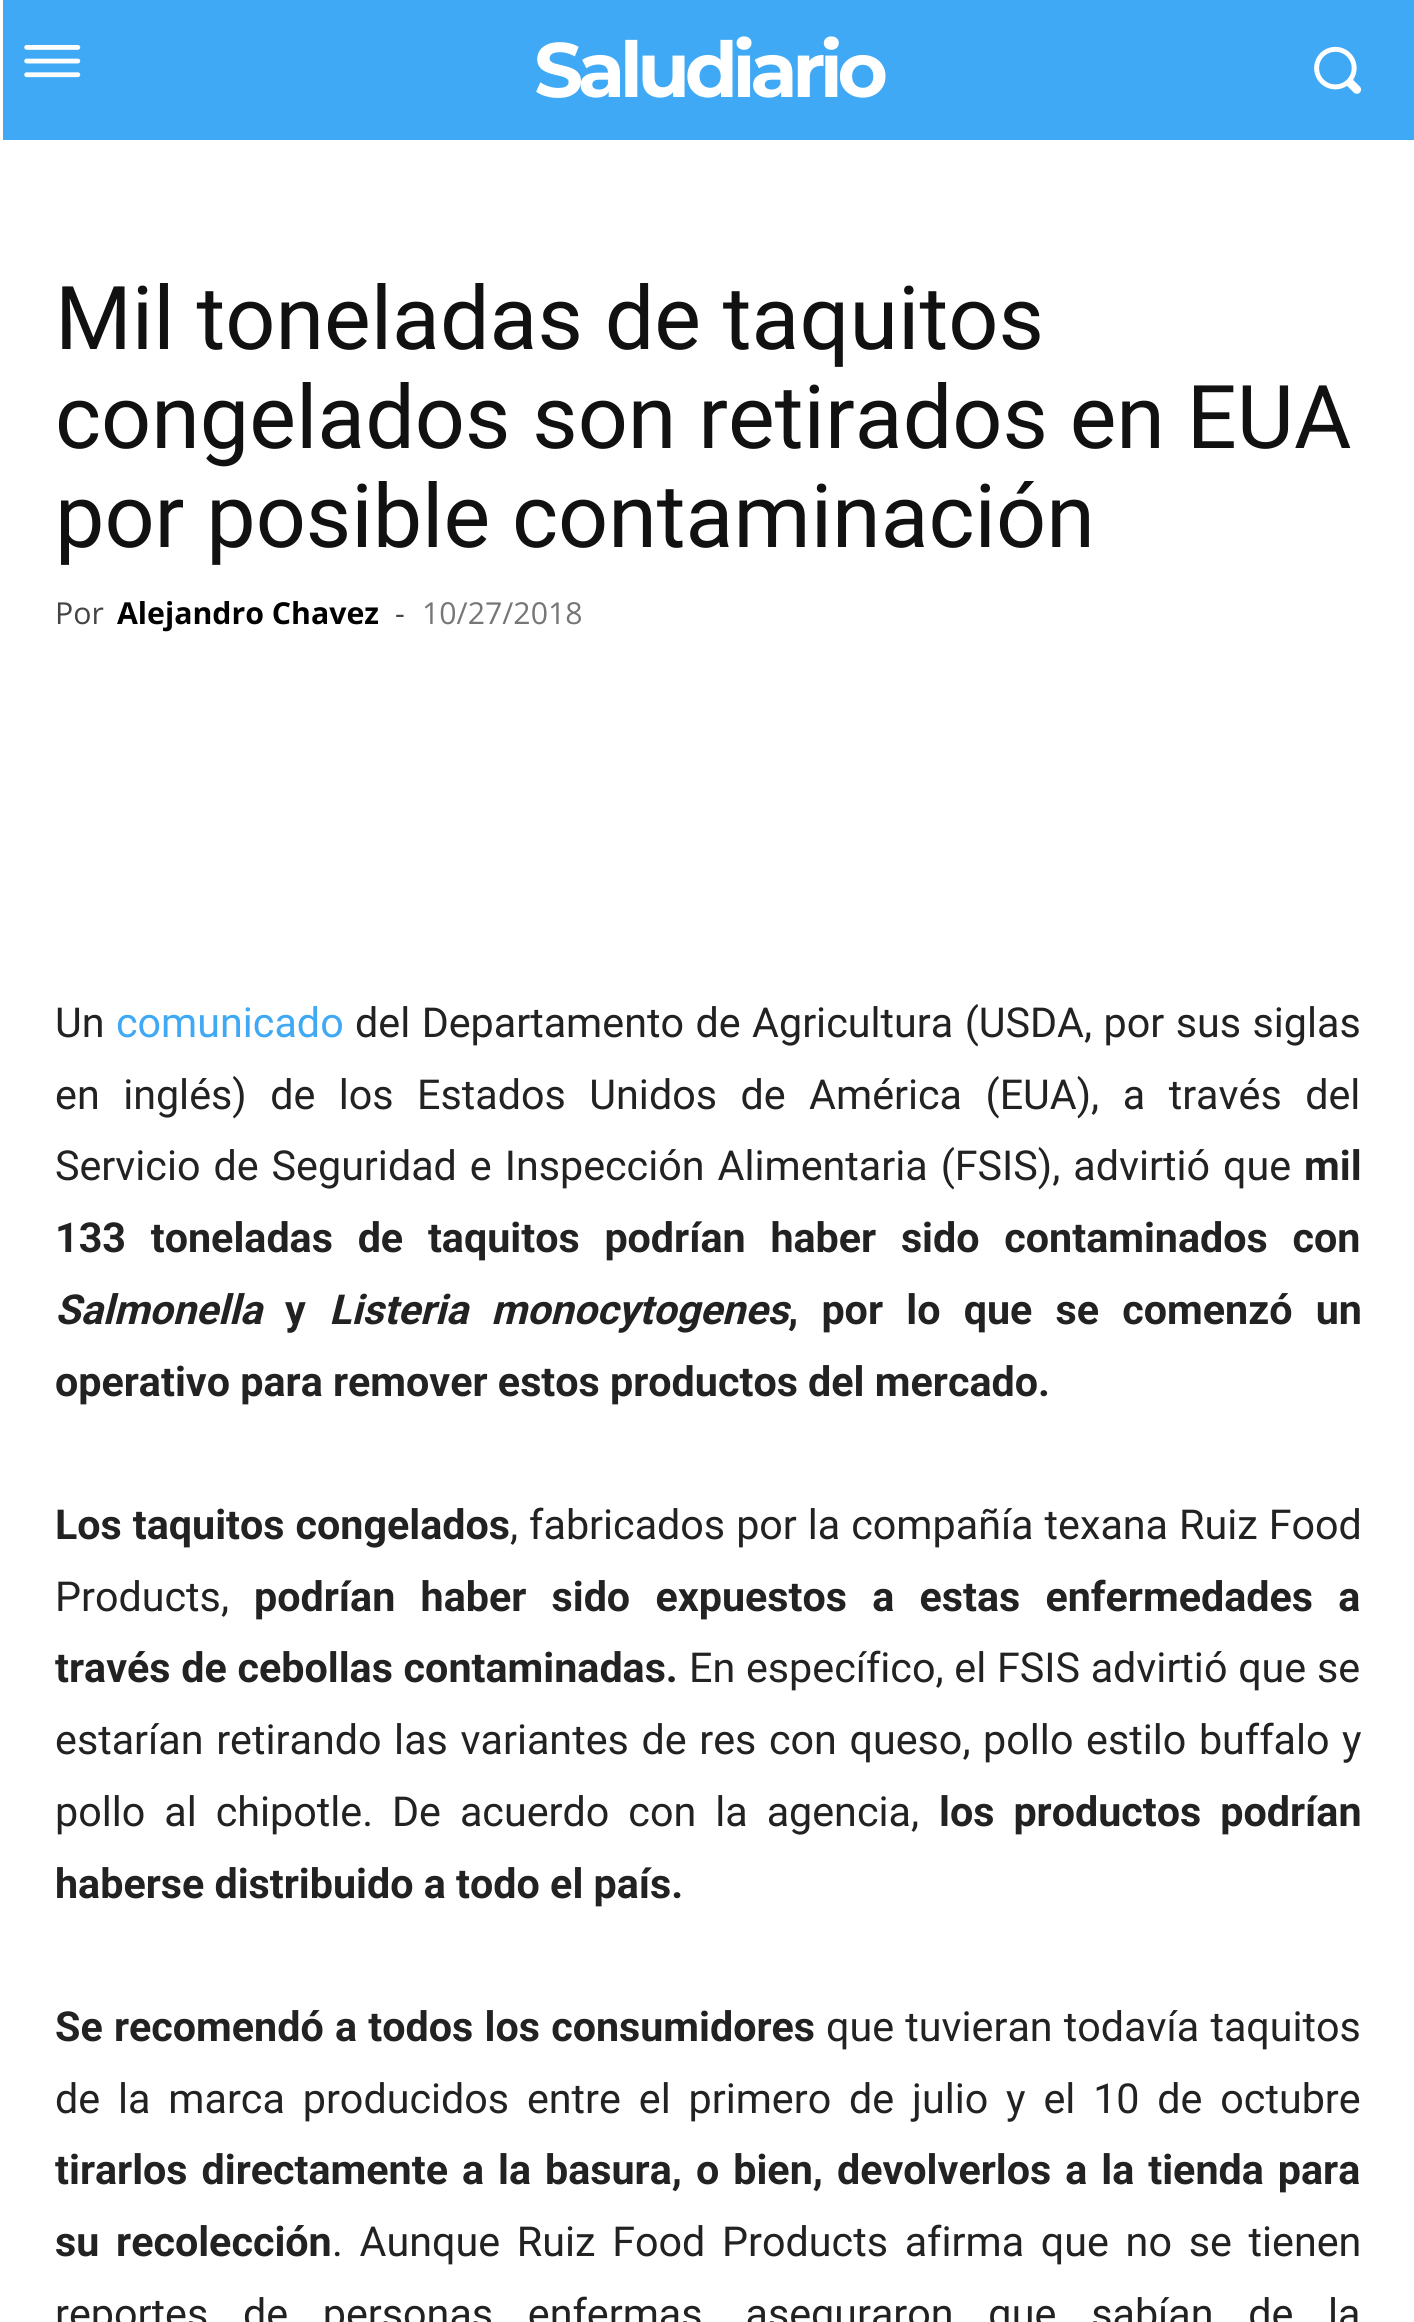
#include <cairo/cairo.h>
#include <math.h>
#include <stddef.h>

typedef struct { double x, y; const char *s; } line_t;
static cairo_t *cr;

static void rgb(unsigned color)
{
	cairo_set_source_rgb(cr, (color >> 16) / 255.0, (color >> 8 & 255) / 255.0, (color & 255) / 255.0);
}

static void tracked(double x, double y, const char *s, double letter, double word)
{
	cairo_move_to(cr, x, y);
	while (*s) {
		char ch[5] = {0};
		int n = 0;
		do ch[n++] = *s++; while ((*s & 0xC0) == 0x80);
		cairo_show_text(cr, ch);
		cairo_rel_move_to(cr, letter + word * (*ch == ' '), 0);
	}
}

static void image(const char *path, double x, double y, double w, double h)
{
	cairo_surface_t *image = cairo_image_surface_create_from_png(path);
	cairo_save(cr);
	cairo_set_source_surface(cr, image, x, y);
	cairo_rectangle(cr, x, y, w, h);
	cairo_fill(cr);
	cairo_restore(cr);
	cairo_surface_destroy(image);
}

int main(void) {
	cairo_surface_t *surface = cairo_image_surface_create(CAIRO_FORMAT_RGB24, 1414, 2322);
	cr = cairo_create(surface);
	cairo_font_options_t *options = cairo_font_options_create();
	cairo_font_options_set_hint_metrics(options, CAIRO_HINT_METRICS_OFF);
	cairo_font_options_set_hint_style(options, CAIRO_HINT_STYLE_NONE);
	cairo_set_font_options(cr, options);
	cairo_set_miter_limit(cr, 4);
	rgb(0xffffff);
	cairo_paint(cr);
	rgb(0x3fa9f5);
	cairo_rectangle(cr, 3, 0, 1411, 140);
	cairo_fill(cr);
	image("img/1.png", 24, 45, 57, 33);
	image("img/2.png", 1314, 46, 48, 48);
	cairo_select_font_face(cr, "Montserrat", CAIRO_FONT_SLANT_NORMAL, CAIRO_FONT_WEIGHT_BOLD);
	cairo_set_font_size(cr, 77);
	rgb(0xffffff);
	tracked(534, 97, "Saludiario", -5.5, 0);
	cairo_select_font_face(cr, "Roboto", CAIRO_FONT_SLANT_NORMAL, CAIRO_FONT_WEIGHT_NORMAL);
	cairo_set_font_size(cr, 88);
	rgb(0x111111);
	{
		static const line_t items[] = {
			{55, 349, "Mil toneladas de taquitos"},
			{55, 448, "congelados son retirados en EUA"},
			{55, 547, "por posible contaminación"},
		};
		for (size_t i = 0; i < sizeof items / sizeof *items; i++) {
			cairo_move_to(cr, items[i].x, items[i].y);
			cairo_show_text(cr, items[i].s);
		}
	}
	cairo_select_font_face(cr, "Open Sans", CAIRO_FONT_SLANT_NORMAL, CAIRO_FONT_WEIGHT_NORMAL);
	cairo_set_font_size(cr, 30.25);
	rgb(0x444444);
	cairo_move_to(cr, 55, 624);
	cairo_show_text(cr, "Por");
	cairo_select_font_face(cr, "Open Sans", CAIRO_FONT_SLANT_NORMAL, CAIRO_FONT_WEIGHT_BOLD);
	rgb(0x000000);
	cairo_move_to(cr, 117, 624);
	cairo_show_text(cr, "Alejandro Chavez");
	cairo_select_font_face(cr, "Open Sans", CAIRO_FONT_SLANT_NORMAL, CAIRO_FONT_WEIGHT_NORMAL);
	rgb(0x444444);
	cairo_move_to(cr, 395, 624);
	cairo_show_text(cr, "-");
	rgb(0x767676);
	cairo_move_to(cr, 422, 624);
	cairo_show_text(cr, "10/27/2018");
	cairo_select_font_face(cr, "Roboto", CAIRO_FONT_SLANT_NORMAL, CAIRO_FONT_WEIGHT_NORMAL);
	cairo_set_font_size(cr, 41.25);
	rgb(0x222222);
	cairo_move_to(cr, 55, 1037);
	cairo_show_text(cr, "Un");
	rgb(0x3fa9f5);
	cairo_move_to(cr, 116, 1037);
	cairo_show_text(cr, "comunicado");
	rgb(0x222222);
	tracked(355, 1037, "del Departamento de Agricultura (USDA, por sus siglas", 0, 1.25);
	tracked(55, 1109, "en inglés) de los Estados Unidos de América (EUA), a través del", 0, 13.25);
	tracked(55, 1180, "Servicio de Seguridad e Inspección Alimentaria (FSIS), advirtió que", 0, 2.75);
	cairo_select_font_face(cr, "Roboto", CAIRO_FONT_SLANT_NORMAL, CAIRO_FONT_WEIGHT_BOLD);
	cairo_move_to(cr, 1304, 1180);
	cairo_show_text(cr, "mil");
	tracked(55, 1252, "133 toneladas de taquitos podrían haber sido contaminados con", 0, 14.5);
	cairo_select_font_face(cr, "Roboto", CAIRO_FONT_SLANT_ITALIC, CAIRO_FONT_WEIGHT_BOLD);
	cairo_move_to(cr, 55, 1324);
	cairo_show_text(cr, "Salmonella");
	cairo_select_font_face(cr, "Roboto", CAIRO_FONT_SLANT_NORMAL, CAIRO_FONT_WEIGHT_BOLD);
	cairo_move_to(cr, 285, 1324);
	cairo_show_text(cr, "y");
	cairo_select_font_face(cr, "Roboto", CAIRO_FONT_SLANT_ITALIC, CAIRO_FONT_WEIGHT_BOLD);
	tracked(329, 1324, "Listeria monocytogenes", 0, 13);
	cairo_select_font_face(cr, "Roboto", CAIRO_FONT_SLANT_NORMAL, CAIRO_FONT_WEIGHT_BOLD);
	tracked(788, 1324, ", por lo que se comenzó un", 0, 13);
	cairo_move_to(cr, 55, 1396);
	cairo_show_text(cr, "operativo para remover estos productos del mercado.");
	tracked(55, 1539, "Los taquitos congelados", 0, 0.75);
	cairo_select_font_face(cr, "Roboto", CAIRO_FONT_SLANT_NORMAL, CAIRO_FONT_WEIGHT_NORMAL);
	tracked(510, 1539, ", fabricados por la compañía texana Ruiz Food", 0, 0.75);
	cairo_move_to(cr, 55, 1611);
	cairo_show_text(cr, "Products,");
	cairo_select_font_face(cr, "Roboto", CAIRO_FONT_SLANT_NORMAL, CAIRO_FONT_WEIGHT_BOLD);
	tracked(254, 1611, "podrían haber sido expuestos a estas enfermedades a", 0, 15);
	tracked(55, 1682, "través de cebollas contaminadas.", 0, 0.5);
	cairo_select_font_face(cr, "Roboto", CAIRO_FONT_SLANT_NORMAL, CAIRO_FONT_WEIGHT_NORMAL);
	tracked(689, 1682, "En específico, el FSIS advirtió que se", 0, 0.5);
	tracked(55, 1754, "estarían retirando las variantes de res con queso, pollo estilo buffalo y", 0, 2.4);
	tracked(55, 1826, "pollo al chipotle. De acuerdo con la agencia,", 0, 8.75);
	cairo_select_font_face(cr, "Roboto", CAIRO_FONT_SLANT_NORMAL, CAIRO_FONT_WEIGHT_BOLD);
	tracked(939, 1826, "los productos podrían", 0, 8.75);
	cairo_move_to(cr, 55, 1898);
	cairo_show_text(cr, "haberse distribuido a todo el país.");
	tracked(55, 2041, "Se recomendó a todos los consumidores", 0, 1);
	cairo_select_font_face(cr, "Roboto", CAIRO_FONT_SLANT_NORMAL, CAIRO_FONT_WEIGHT_NORMAL);
	tracked(826, 2041, "que tuvieran todavía taquitos", 0, 1);
	tracked(55, 2113, "de la marca producidos entre el primero de julio y el 10 de octubre", 0, 7.6);
	cairo_select_font_face(cr, "Roboto", CAIRO_FONT_SLANT_NORMAL, CAIRO_FONT_WEIGHT_BOLD);
	tracked(55, 2184, "tirarlos directamente a la basura, o bien, devolverlos a la tienda para", 0, 3.75);
	tracked(55, 2256, "su recolección", 0, 6.5);
	cairo_select_font_face(cr, "Roboto", CAIRO_FONT_SLANT_NORMAL, CAIRO_FONT_WEIGHT_NORMAL);
	tracked(332, 2256, ". Aunque Ruiz Food Products afirma que no se tienen", 0, 6.5);
	tracked(55, 2328, "reportes de personas enfermas, aseguraron que sabían de la", 0, 24.5);
	cairo_surface_write_to_png(surface, "page.png");
	cairo_font_options_destroy(options);
	cairo_destroy(cr);
	cairo_surface_destroy(surface);
	return 0;
}
